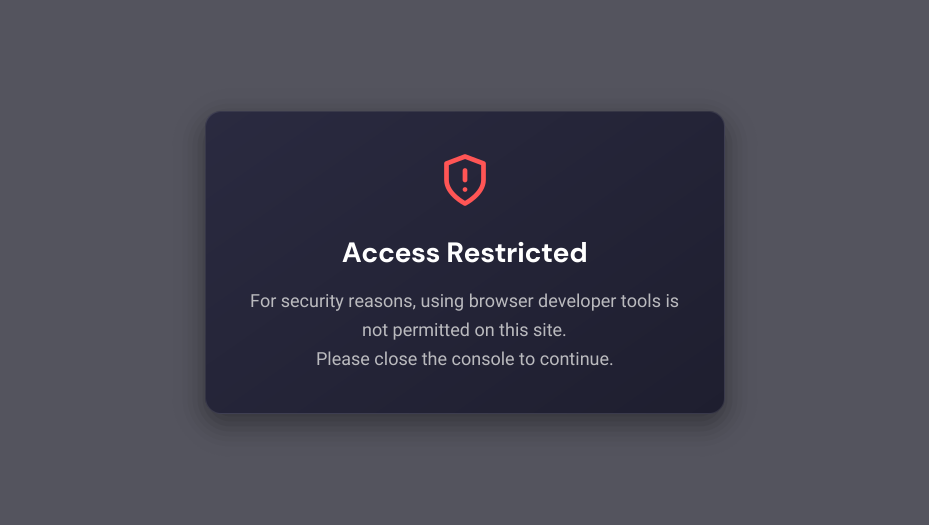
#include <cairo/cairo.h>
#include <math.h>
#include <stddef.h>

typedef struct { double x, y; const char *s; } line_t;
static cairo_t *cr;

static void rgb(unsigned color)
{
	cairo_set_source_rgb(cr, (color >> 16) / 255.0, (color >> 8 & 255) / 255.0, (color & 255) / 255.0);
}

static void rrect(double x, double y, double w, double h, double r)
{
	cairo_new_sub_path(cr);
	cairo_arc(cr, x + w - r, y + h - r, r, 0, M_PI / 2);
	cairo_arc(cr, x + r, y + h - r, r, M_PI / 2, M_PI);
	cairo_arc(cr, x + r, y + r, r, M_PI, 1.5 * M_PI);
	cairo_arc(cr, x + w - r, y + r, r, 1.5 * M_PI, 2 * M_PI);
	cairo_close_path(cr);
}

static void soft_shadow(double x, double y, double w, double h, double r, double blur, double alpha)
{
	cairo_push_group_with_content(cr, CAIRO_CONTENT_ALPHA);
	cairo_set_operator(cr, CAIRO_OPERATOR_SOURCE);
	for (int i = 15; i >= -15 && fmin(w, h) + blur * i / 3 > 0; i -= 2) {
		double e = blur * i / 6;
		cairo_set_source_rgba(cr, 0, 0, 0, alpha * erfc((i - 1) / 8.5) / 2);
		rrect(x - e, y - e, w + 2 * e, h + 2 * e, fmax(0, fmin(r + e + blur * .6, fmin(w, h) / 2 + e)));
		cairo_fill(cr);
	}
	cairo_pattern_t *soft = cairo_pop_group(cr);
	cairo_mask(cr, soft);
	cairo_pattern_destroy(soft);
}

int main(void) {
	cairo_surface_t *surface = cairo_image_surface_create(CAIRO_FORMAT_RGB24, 929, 525);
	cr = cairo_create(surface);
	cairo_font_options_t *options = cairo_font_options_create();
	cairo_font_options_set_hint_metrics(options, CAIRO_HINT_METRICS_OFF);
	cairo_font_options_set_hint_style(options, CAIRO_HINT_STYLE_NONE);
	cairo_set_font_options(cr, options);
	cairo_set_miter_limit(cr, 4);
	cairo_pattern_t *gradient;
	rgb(0x54545e);
	cairo_paint(cr);
	rgb(0x000000);
	soft_shadow(205, 121, 520, 303, 16, 15, 0.4);
	cairo_save(cr);
	rrect(205, 111, 520, 303, 16);
	cairo_clip(cr);
	gradient = cairo_pattern_create_linear(309, -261, 621, 184);
	cairo_pattern_add_color_stop_rgba(gradient, 0, 0.165, 0.165, 0.251, 1);
	cairo_pattern_add_color_stop_rgba(gradient, 1, 0.118, 0.118, 0.184, 1);
	cairo_set_source(cr, gradient);
	cairo_pattern_destroy(gradient);
	cairo_rectangle(cr, 215, 111, 500, 1);
	cairo_fill(cr);
	gradient = cairo_pattern_create_linear(-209, 40, 103, 485);
	cairo_pattern_add_color_stop_rgba(gradient, 0, 0.165, 0.165, 0.251, 1);
	cairo_pattern_add_color_stop_rgba(gradient, 1, 0.118, 0.118, 0.184, 1);
	cairo_set_source(cr, gradient);
	cairo_pattern_destroy(gradient);
	cairo_rectangle(cr, 205, 121, 1, 283);
	cairo_fill(cr);
	gradient = cairo_pattern_create_linear(309, 40, 621, 485);
	cairo_pattern_add_color_stop_rgba(gradient, 0, 0.165, 0.165, 0.251, 1);
	cairo_pattern_add_color_stop_rgba(gradient, 1, 0.118, 0.118, 0.184, 1);
	cairo_set_source(cr, gradient);
	cairo_pattern_destroy(gradient);
	cairo_rectangle(cr, 206, 112, 518, 301);
	cairo_fill(cr);
	gradient = cairo_pattern_create_linear(827, 40, 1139, 485);
	cairo_pattern_add_color_stop_rgba(gradient, 0, 0.165, 0.165, 0.251, 1);
	cairo_pattern_add_color_stop_rgba(gradient, 1, 0.118, 0.118, 0.184, 1);
	cairo_set_source(cr, gradient);
	cairo_pattern_destroy(gradient);
	cairo_rectangle(cr, 724, 121, 1, 283);
	cairo_fill(cr);
	gradient = cairo_pattern_create_linear(309, 341, 621, 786);
	cairo_pattern_add_color_stop_rgba(gradient, 0, 0.165, 0.165, 0.251, 1);
	cairo_pattern_add_color_stop_rgba(gradient, 1, 0.118, 0.118, 0.184, 1);
	cairo_set_source(cr, gradient);
	cairo_pattern_destroy(gradient);
	cairo_rectangle(cr, 215, 413, 500, 1);
	cairo_fill(cr);
	cairo_restore(cr);
	rrect(205.5, 111.5, 519, 302, 15.5);
	cairo_set_source_rgba(cr, 1, 1, 1, 0.1);
	cairo_set_line_width(cr, 1);
	cairo_stroke(cr);
	cairo_new_path(cr);
	cairo_move_to(cr, 465, 203.5);
	cairo_curve_to(cr, 465, 203.5, 483.5, 194, 483.5, 180);
	cairo_line_to(cr, 483.5, 163.5);
	cairo_line_to(cr, 465, 156.5);
	cairo_line_to(cr, 446.5, 163.5);
	cairo_line_to(cr, 446.5, 180);
	cairo_curve_to(cr, 446.5, 194, 465, 203.5, 465, 203.5);
	cairo_close_path(cr);
	cairo_move_to(cr, 465, 170.5);
	cairo_line_to(cr, 465, 180);
	cairo_move_to(cr, 465, 189.5);
	cairo_line_to(cr, 465, 189.5);
	rgb(0xff5555);
	cairo_set_line_width(cr, 4.7);
	cairo_set_line_cap(cr, CAIRO_LINE_CAP_ROUND);
	cairo_set_line_join(cr, CAIRO_LINE_JOIN_ROUND);
	cairo_stroke(cr);
	cairo_select_font_face(cr, "DM Sans", CAIRO_FONT_SLANT_NORMAL, CAIRO_FONT_WEIGHT_BOLD);
	cairo_set_font_size(cr, 28);
	rgb(0xffffff);
	cairo_move_to(cr, 342, 262);
	cairo_show_text(cr, "Access Restricted");
	cairo_select_font_face(cr, "Roboto", CAIRO_FONT_SLANT_NORMAL, CAIRO_FONT_WEIGHT_NORMAL);
	cairo_set_font_size(cr, 18);
	rgb(0xbababe);
	{
		static const line_t items[] = {
			{250, 307, "For security reasons, using browser developer tools is"},
			{362, 336, "not permitted on this site."},
			{316, 365, "Please close the console to continue."},
		};
		for (size_t i = 0; i < sizeof items / sizeof *items; i++) {
			cairo_move_to(cr, items[i].x, items[i].y);
			cairo_show_text(cr, items[i].s);
		}
	}
	cairo_surface_write_to_png(surface, "page.png");
	cairo_font_options_destroy(options);
	cairo_destroy(cr);
	cairo_surface_destroy(surface);
	return 0;
}
